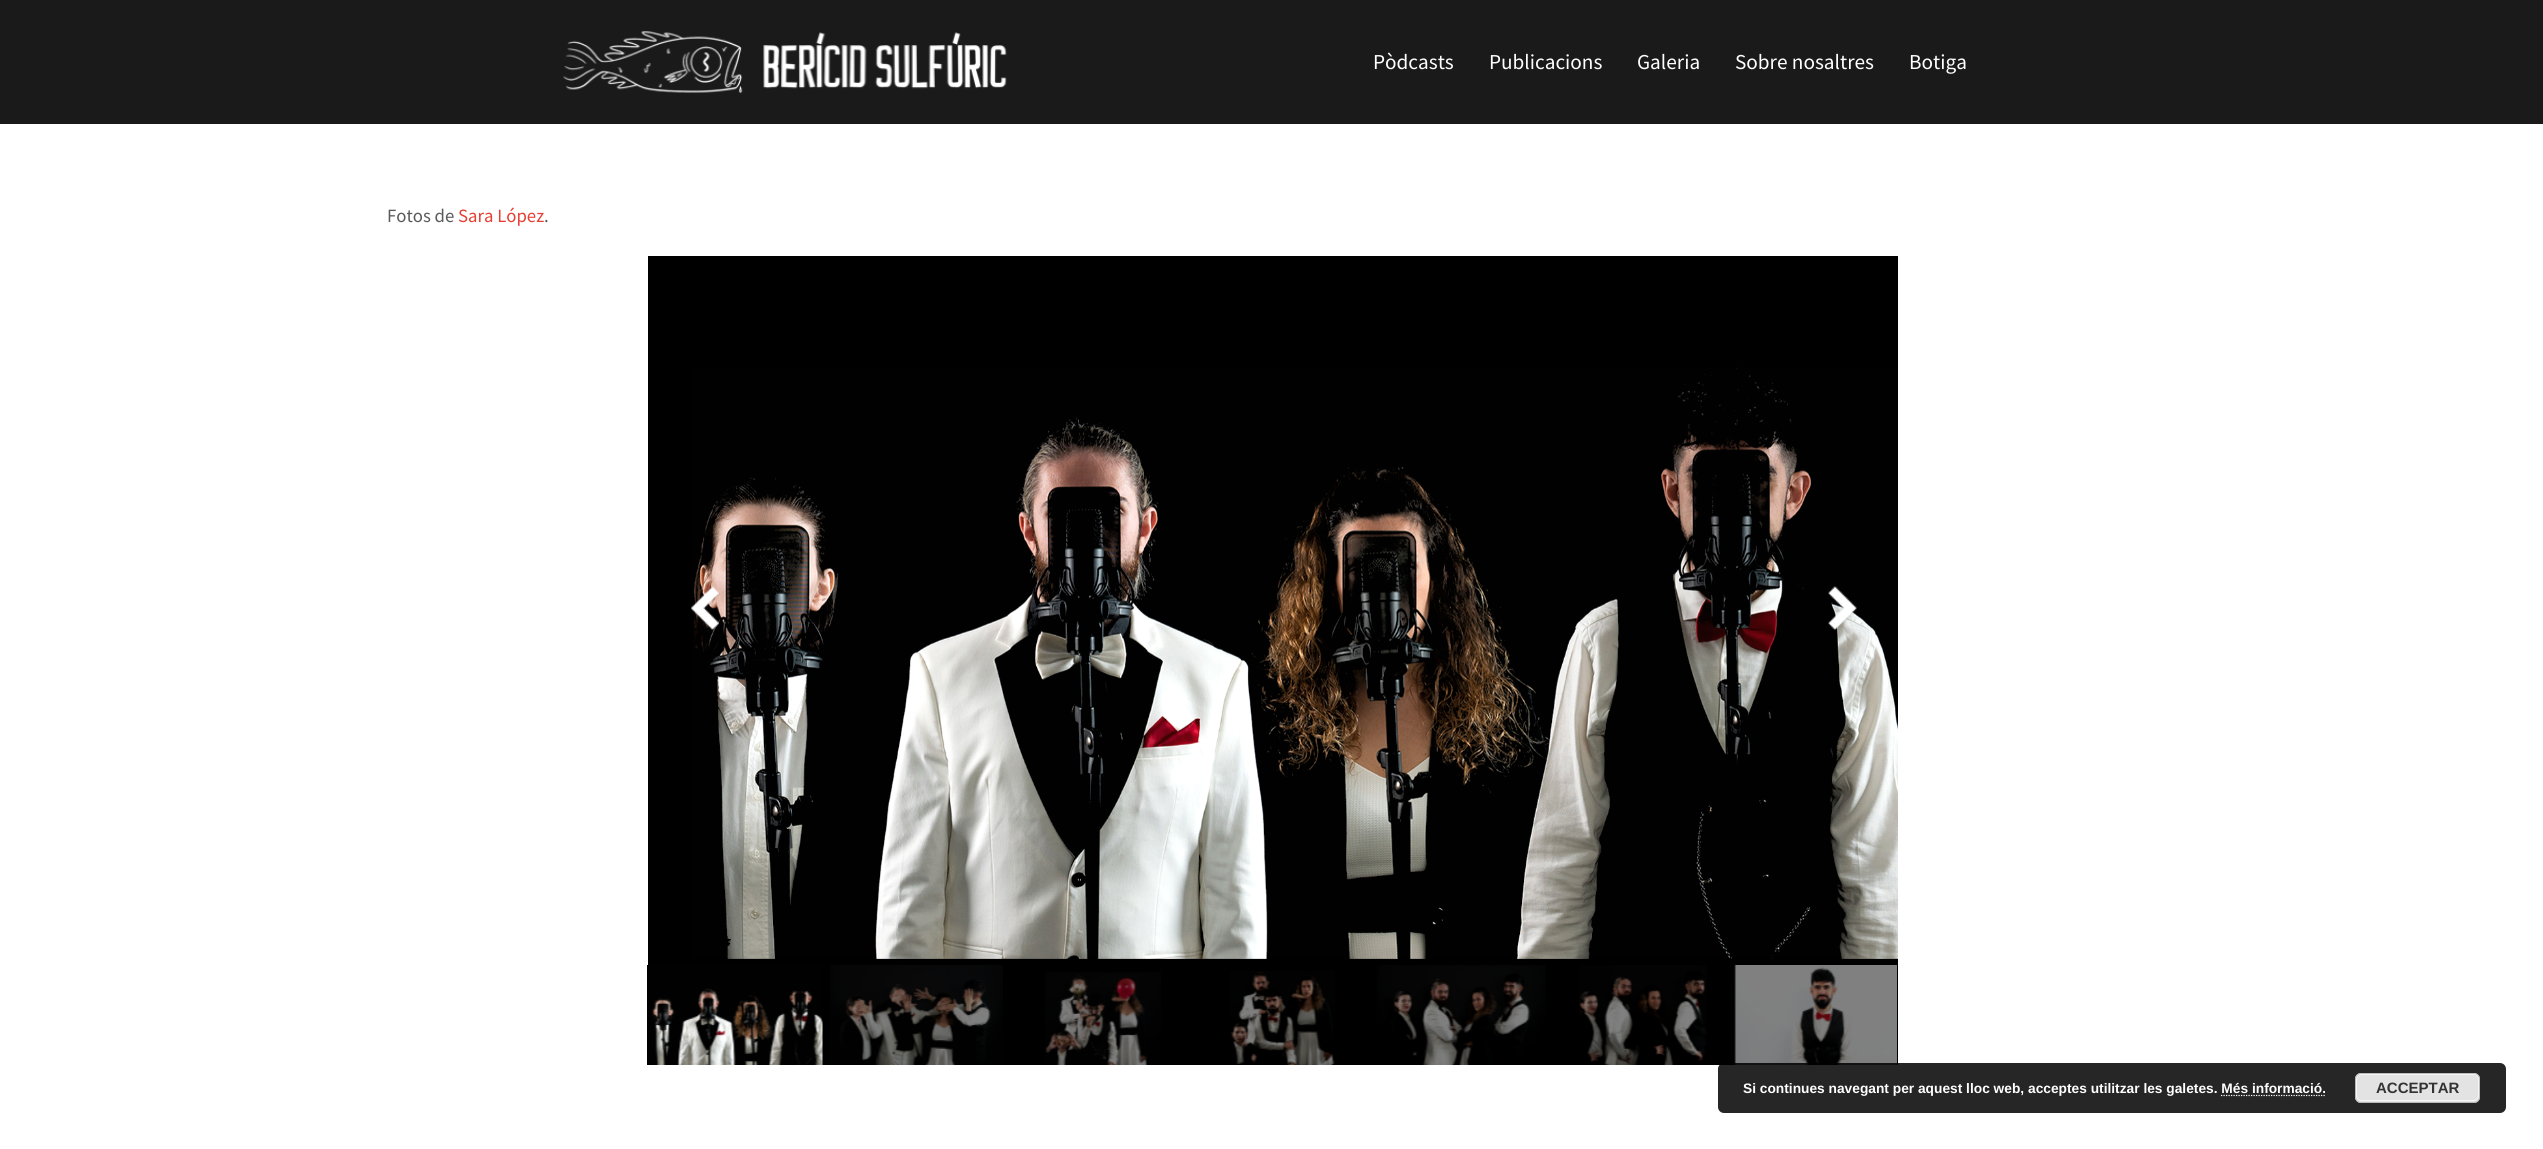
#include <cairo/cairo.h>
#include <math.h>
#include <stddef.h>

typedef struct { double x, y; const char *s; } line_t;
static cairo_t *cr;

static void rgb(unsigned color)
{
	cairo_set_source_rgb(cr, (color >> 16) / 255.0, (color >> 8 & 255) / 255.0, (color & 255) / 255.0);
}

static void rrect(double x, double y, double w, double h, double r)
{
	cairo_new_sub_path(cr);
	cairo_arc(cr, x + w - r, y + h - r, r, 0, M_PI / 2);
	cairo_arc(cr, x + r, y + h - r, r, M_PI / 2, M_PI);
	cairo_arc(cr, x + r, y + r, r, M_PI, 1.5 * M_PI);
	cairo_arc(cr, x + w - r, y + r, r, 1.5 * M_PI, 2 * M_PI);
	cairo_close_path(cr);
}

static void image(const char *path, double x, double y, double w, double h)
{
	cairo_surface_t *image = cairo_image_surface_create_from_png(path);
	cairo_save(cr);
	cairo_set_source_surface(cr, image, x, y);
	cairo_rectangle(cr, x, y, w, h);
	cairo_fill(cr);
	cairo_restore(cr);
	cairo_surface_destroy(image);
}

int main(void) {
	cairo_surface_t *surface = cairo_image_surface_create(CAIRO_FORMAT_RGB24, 2543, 1149);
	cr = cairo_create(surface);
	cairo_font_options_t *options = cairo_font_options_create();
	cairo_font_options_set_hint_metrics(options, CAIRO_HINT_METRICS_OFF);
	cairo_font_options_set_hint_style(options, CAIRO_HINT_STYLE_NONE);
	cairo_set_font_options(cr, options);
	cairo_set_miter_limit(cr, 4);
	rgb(0xffffff);
	cairo_paint(cr);
	rgb(0x1a1a1a);
	cairo_rectangle(cr, 0, 0, 2543, 124);
	cairo_fill(cr);
	image("img/1.png", 563, 31, 444, 63);
	rgb(0x000000);
	cairo_rectangle(cr, 648, 256, 1250, 809);
	cairo_fill(cr);
	image("img/2.png", 693, 367, 1205, 592);
	image("img/3.png", 690, 586, 30, 45);
	image("img/4.png", 1828, 586, 29, 45);
	image("img/5.png", 647, 965, 176, 100);
	image("img/6.png", 830, 965, 173, 100);
	image("img/7.png", 1045, 972, 116, 93);
	image("img/8.png", 1230, 971, 105, 94);
	image("img/9.png", 1377, 965, 169, 100);
	image("img/10.png", 1579, 965, 128, 100);
	image("img/11.png", 1734, 965, 163, 100);
	cairo_set_source_rgba(cr, 0, 0, 0, 0.85);
	rrect(1718, 1063, 788, 50, 6);
	cairo_fill(cr);
	rgb(0xe3e3e3);
	rrect(2355, 1073, 125, 30, 6);
	cairo_fill(cr);
	rrect(2356.5, 1074.5, 122, 26, 4.5);
	rgb(0xf6f6f6);
	cairo_set_line_width(cr, 1);
	cairo_stroke(cr);
	rrect(2355.5, 1073.5, 124, 29, 5.5);
	rgb(0xbbbbbb);
	cairo_stroke(cr);
	cairo_new_path(cr);
	cairo_move_to(cr, 2221, 1095.5);
	cairo_line_to(cr, 2326, 1095.5);
	rgb(0xffffff);
	cairo_set_line_width(cr, 1.2);
	cairo_set_dash(cr, (double[]){1.25, 1.25}, 2, 0);
	cairo_stroke(cr);
	cairo_select_font_face(cr, "Source Sans Pro", CAIRO_FONT_SLANT_NORMAL, CAIRO_FONT_WEIGHT_NORMAL);
	cairo_set_font_size(cr, 21.25);
	{
		static const line_t items[] = {
			{1373, 69, "Pòdcasts"},
			{1489, 69, "Publicacions"},
			{1637, 69, "Galeria"},
			{1735, 69, "Sobre nosaltres"},
			{1909, 69, "Botiga"},
		};
		for (size_t i = 0; i < sizeof items / sizeof *items; i++) {
			cairo_move_to(cr, items[i].x, items[i].y);
			cairo_show_text(cr, items[i].s);
		}
	}
	cairo_set_font_size(cr, 18.75);
	rgb(0x5a5a5b);
	cairo_move_to(cr, 387, 222);
	cairo_show_text(cr, "Fotos de");
	rgb(0xe63f33);
	cairo_move_to(cr, 458, 222);
	cairo_show_text(cr, "Sara López");
	rgb(0x5a5a5b);
	cairo_move_to(cr, 544, 222);
	cairo_show_text(cr, ".");
	cairo_select_font_face(cr, "Liberation Sans", CAIRO_FONT_SLANT_NORMAL, CAIRO_FONT_WEIGHT_BOLD);
	cairo_set_font_size(cr, 13.75);
	rgb(0xffffff);
	cairo_move_to(cr, 1743, 1093);
	cairo_show_text(cr, "Si continues navegant per aquest lloc web, acceptes utilitzar les galetes. Més informació.");
	cairo_set_font_size(cr, 15);
	rgb(0x333333);
	cairo_move_to(cr, 2376, 1093);
	cairo_show_text(cr, "ACCEPTAR");
	cairo_surface_write_to_png(surface, "page.png");
	cairo_font_options_destroy(options);
	cairo_destroy(cr);
	cairo_surface_destroy(surface);
	return 0;
}
